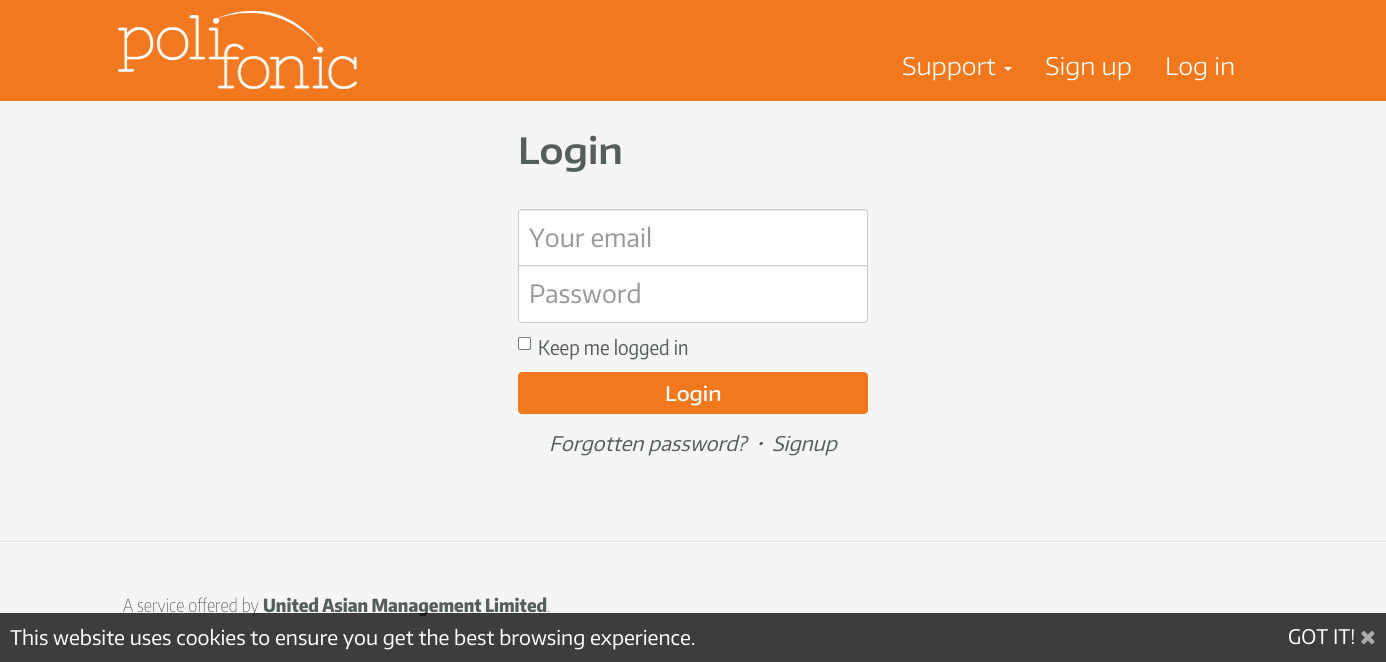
#include <cairo/cairo.h>
#include <math.h>
#include <stddef.h>

typedef struct { double x, y; const char *s; } line_t;
static cairo_t *cr;

static void rgb(unsigned color)
{
	cairo_set_source_rgb(cr, (color >> 16) / 255.0, (color >> 8 & 255) / 255.0, (color & 255) / 255.0);
}

static void rrect(double x, double y, double w, double h, double r)
{
	cairo_new_sub_path(cr);
	cairo_arc(cr, x + w - r, y + h - r, r, 0, M_PI / 2);
	cairo_arc(cr, x + r, y + h - r, r, M_PI / 2, M_PI);
	cairo_arc(cr, x + r, y + r, r, M_PI, 1.5 * M_PI);
	cairo_arc(cr, x + w - r, y + r, r, 1.5 * M_PI, 2 * M_PI);
	cairo_close_path(cr);
}

static void image(const char *path, double x, double y, double w, double h)
{
	cairo_surface_t *image = cairo_image_surface_create_from_png(path);
	cairo_save(cr);
	cairo_set_source_surface(cr, image, x, y);
	cairo_rectangle(cr, x, y, w, h);
	cairo_fill(cr);
	cairo_restore(cr);
	cairo_surface_destroy(image);
}

int main(void) {
	cairo_surface_t *surface = cairo_image_surface_create(CAIRO_FORMAT_RGB24, 1386, 662);
	cr = cairo_create(surface);
	cairo_font_options_t *options = cairo_font_options_create();
	cairo_font_options_set_hint_metrics(options, CAIRO_HINT_METRICS_OFF);
	cairo_font_options_set_hint_style(options, CAIRO_HINT_STYLE_NONE);
	cairo_set_font_options(cr, options);
	cairo_set_miter_limit(cr, 4);
	rgb(0xf5f5f5);
	cairo_paint(cr);
	rgb(0xf1781d);
	cairo_rectangle(cr, 0, 0, 1386, 101);
	cairo_fill(cr);
	image("img/1.png", 118, 10, 239, 79);
	rgb(0xffffff);
	cairo_new_path(cr);
	cairo_move_to(cr, 1004, 67);
	cairo_line_to(cr, 1012, 67);
	cairo_line_to(cr, 1008, 71);
	cairo_close_path(cr);
	cairo_fill(cr);
	cairo_new_path(cr);
	cairo_move_to(cr, 522, 209);
	cairo_line_to(cr, 864, 209);
	cairo_curve_to(cr, 866, 209, 868, 211, 868, 213);
	cairo_line_to(cr, 868, 266);
	cairo_line_to(cr, 518, 266);
	cairo_line_to(cr, 518, 213);
	cairo_curve_to(cr, 518, 211, 520, 209, 522, 209);
	cairo_close_path(cr);
	cairo_fill(cr);
	rgb(0xececec);
	cairo_new_path(cr);
	cairo_move_to(cr, 522, 211);
	cairo_line_to(cr, 864, 211);
	cairo_curve_to(cr, 866, 211, 867, 212, 867, 214);
	cairo_curve_to(cr, 867, 212, 866, 210, 864, 210);
	cairo_line_to(cr, 522, 210);
	cairo_line_to(cr, 520, 211);
	cairo_line_to(cr, 519, 214);
	cairo_curve_to(cr, 519, 212, 520, 211, 522, 211);
	cairo_close_path(cr);
	cairo_fill(cr);
	cairo_new_path(cr);
	cairo_move_to(cr, 522, 209.5);
	cairo_line_to(cr, 864, 209.5);
	cairo_curve_to(cr, 866, 209.5, 867.5, 211, 867.5, 213);
	cairo_line_to(cr, 867.5, 265.5);
	cairo_line_to(cr, 518.5, 265.5);
	cairo_line_to(cr, 518.5, 213);
	cairo_curve_to(cr, 518.5, 211, 520, 209.5, 522, 209.5);
	cairo_close_path(cr);
	rgb(0xcccccc);
	cairo_set_line_width(cr, 1);
	cairo_stroke(cr);
	rgb(0xffffff);
	cairo_new_path(cr);
	cairo_move_to(cr, 518, 265);
	cairo_line_to(cr, 868, 265);
	cairo_line_to(cr, 868, 319);
	cairo_curve_to(cr, 868, 321, 866, 323, 864, 323);
	cairo_line_to(cr, 522, 323);
	cairo_curve_to(cr, 520, 323, 518, 321, 518, 319);
	cairo_close_path(cr);
	cairo_fill(cr);
	rgb(0xececec);
	cairo_rectangle(cr, 519, 266, 348, 1);
	cairo_fill(cr);
	cairo_new_path(cr);
	cairo_move_to(cr, 518.5, 265.5);
	cairo_line_to(cr, 867.5, 265.5);
	cairo_line_to(cr, 867.5, 319);
	cairo_curve_to(cr, 867.5, 321, 866, 322.5, 864, 322.5);
	cairo_line_to(cr, 522, 322.5);
	cairo_curve_to(cr, 520, 322.5, 518.5, 321, 518.5, 319);
	cairo_close_path(cr);
	rgb(0xcccccc);
	cairo_stroke(cr);
	rgb(0xffffff);
	rrect(518.5, 337.5, 12, 12, 1.5);
	cairo_fill_preserve(cr);
	rgb(0x767676);
	cairo_stroke(cr);
	rgb(0xf1781d);
	rrect(518.5, 372.5, 349, 41, 3.5);
	cairo_fill_preserve(cr);
	cairo_stroke(cr);
	rgb(0xffffff);
	cairo_rectangle(cr, 0, 542, 1386, 1);
	cairo_fill(cr);
	rgb(0xe4e4e4);
	cairo_rectangle(cr, 0, 541, 1386, 1);
	cairo_fill(cr);
	cairo_select_font_face(cr, "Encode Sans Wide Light", CAIRO_FONT_SLANT_NORMAL, CAIRO_FONT_WEIGHT_NORMAL);
	cairo_set_font_size(cr, 24);
	rgb(0xffffff);
	{
		static const line_t items[] = {
			{902, 75, "Support"},
			{1045, 75, "Sign up"},
			{1165, 75, "Log in"},
		};
		for (size_t i = 0; i < sizeof items / sizeof *items; i++) {
			cairo_move_to(cr, items[i].x, items[i].y);
			cairo_show_text(cr, items[i].s);
		}
	}
	cairo_select_font_face(cr, "Encode Sans Wide SemiBold", CAIRO_FONT_SLANT_NORMAL, CAIRO_FONT_WEIGHT_NORMAL);
	cairo_set_font_size(cr, 36);
	rgb(0x555e58);
	cairo_move_to(cr, 518, 164);
	cairo_show_text(cr, "Login");
	cairo_select_font_face(cr, "Encode Sans", CAIRO_FONT_SLANT_NORMAL, CAIRO_FONT_WEIGHT_NORMAL);
	cairo_set_font_size(cr, 25);
	rgb(0x999999);
	cairo_move_to(cr, 529, 247);
	cairo_show_text(cr, "Your email");
	cairo_move_to(cr, 529, 303);
	cairo_show_text(cr, "Password");
	cairo_select_font_face(cr, "Encode Sans Condensed", CAIRO_FONT_SLANT_NORMAL, CAIRO_FONT_WEIGHT_NORMAL);
	cairo_set_font_size(cr, 20);
	rgb(0x555e58);
	cairo_move_to(cr, 538, 355);
	cairo_show_text(cr, "Keep me logged in");
	cairo_select_font_face(cr, "Encode Sans Wide Medium", CAIRO_FONT_SLANT_NORMAL, CAIRO_FONT_WEIGHT_NORMAL);
	rgb(0xffffff);
	cairo_move_to(cr, 665, 401);
	cairo_show_text(cr, "Login");
	cairo_select_font_face(cr, "Encode Sans", CAIRO_FONT_SLANT_ITALIC, CAIRO_FONT_WEIGHT_NORMAL);
	rgb(0x555e58);
	{
		static const line_t items[] = {
			{549, 451, "Forgotten password?"},
			{756, 451, "•"},
			{772, 451, "Signup"},
		};
		for (size_t i = 0; i < sizeof items / sizeof *items; i++) {
			cairo_move_to(cr, items[i].x, items[i].y);
			cairo_show_text(cr, items[i].s);
		}
	}
	cairo_select_font_face(cr, "Encode Sans Condensed Thin", CAIRO_FONT_SLANT_NORMAL, CAIRO_FONT_WEIGHT_NORMAL);
	cairo_set_font_size(cr, 18);
	cairo_move_to(cr, 123, 612);
	cairo_show_text(cr, "A service offered by");
	cairo_select_font_face(cr, "Encode Sans Condensed ExtraBold", CAIRO_FONT_SLANT_NORMAL, CAIRO_FONT_WEIGHT_NORMAL);
	cairo_move_to(cr, 263, 612);
	cairo_show_text(cr, "United Asian Management Limited");
	cairo_select_font_face(cr, "Encode Sans Condensed Thin", CAIRO_FONT_SLANT_NORMAL, CAIRO_FONT_WEIGHT_NORMAL);
	cairo_move_to(cr, 547, 612);
	cairo_show_text(cr, ".");
	cairo_set_source_rgba(cr, 0, 0, 0, 0.75);
	cairo_rectangle(cr, 0, 613, 1386, 49);
	cairo_fill(cr);
	cairo_select_font_face(cr, "Encode Sans", CAIRO_FONT_SLANT_NORMAL, CAIRO_FONT_WEIGHT_NORMAL);
	cairo_set_font_size(cr, 20);
	rgb(0xffffff);
	cairo_move_to(cr, 10, 645);
	cairo_show_text(cr, "This website uses cookies to ensure you get the best browsing experience.");
	cairo_move_to(cr, 1288, 644);
	cairo_show_text(cr, "GOT IT!");
	image("img/2.png", 1361, 631, 14, 14);
	cairo_surface_write_to_png(surface, "page.png");
	cairo_font_options_destroy(options);
	cairo_destroy(cr);
	cairo_surface_destroy(surface);
	return 0;
}
